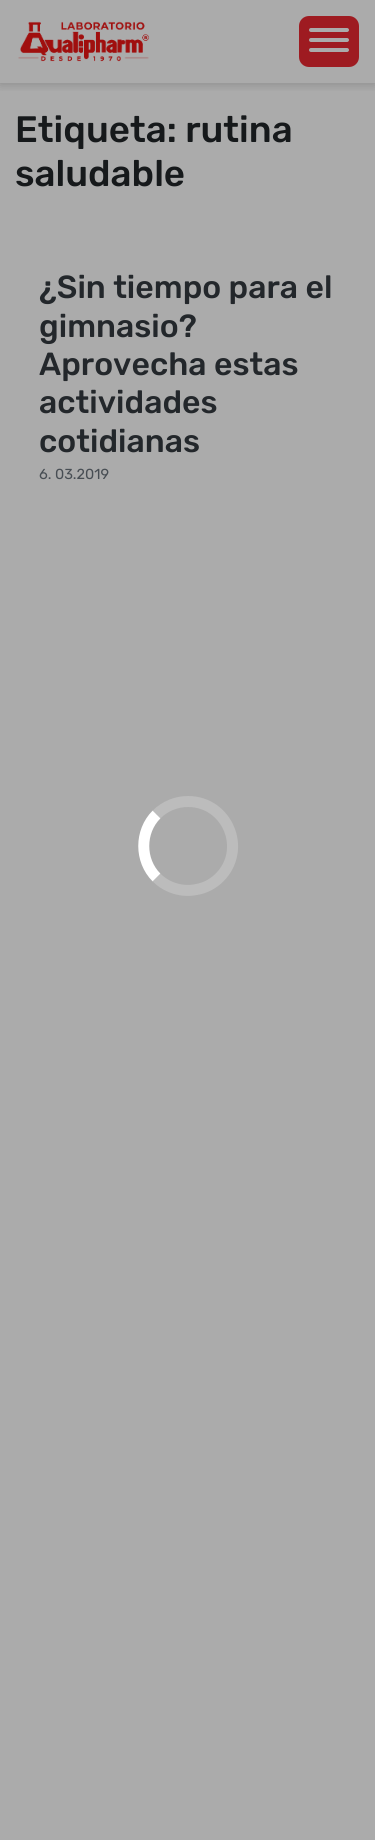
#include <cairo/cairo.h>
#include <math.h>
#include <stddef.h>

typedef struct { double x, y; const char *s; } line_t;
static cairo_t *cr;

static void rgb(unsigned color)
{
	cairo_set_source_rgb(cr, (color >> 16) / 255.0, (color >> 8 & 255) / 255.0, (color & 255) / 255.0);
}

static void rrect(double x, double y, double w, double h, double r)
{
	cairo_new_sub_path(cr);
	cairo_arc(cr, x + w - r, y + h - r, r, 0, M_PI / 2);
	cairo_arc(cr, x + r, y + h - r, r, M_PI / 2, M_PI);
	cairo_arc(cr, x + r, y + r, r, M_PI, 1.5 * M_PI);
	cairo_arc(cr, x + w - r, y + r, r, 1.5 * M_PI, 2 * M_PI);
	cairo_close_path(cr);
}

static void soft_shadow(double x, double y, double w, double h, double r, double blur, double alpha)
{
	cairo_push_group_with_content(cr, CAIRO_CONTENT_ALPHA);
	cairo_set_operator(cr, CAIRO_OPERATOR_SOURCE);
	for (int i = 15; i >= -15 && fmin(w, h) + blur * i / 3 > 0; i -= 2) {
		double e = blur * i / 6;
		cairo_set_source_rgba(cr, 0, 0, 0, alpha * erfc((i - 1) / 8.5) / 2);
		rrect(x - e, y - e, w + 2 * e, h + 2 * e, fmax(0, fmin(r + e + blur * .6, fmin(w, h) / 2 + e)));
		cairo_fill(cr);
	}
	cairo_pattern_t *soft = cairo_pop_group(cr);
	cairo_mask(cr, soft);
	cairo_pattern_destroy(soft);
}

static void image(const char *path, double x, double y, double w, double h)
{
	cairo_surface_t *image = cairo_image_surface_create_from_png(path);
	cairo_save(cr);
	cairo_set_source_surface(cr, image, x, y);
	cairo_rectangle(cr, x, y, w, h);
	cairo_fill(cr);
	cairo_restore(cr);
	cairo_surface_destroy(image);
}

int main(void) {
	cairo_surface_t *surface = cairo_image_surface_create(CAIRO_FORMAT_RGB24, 375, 1840);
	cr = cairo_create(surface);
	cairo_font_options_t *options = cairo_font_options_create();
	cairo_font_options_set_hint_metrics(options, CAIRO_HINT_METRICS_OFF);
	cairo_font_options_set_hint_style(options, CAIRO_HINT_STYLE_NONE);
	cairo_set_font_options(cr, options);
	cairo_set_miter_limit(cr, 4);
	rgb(0xababab);
	cairo_paint(cr);
	cairo_save(cr);
	cairo_rectangle(cr, 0, 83, 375, 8);
	cairo_clip(cr);
	rgb(0x000000);
	soft_shadow(0, 1, 375, 83, 0, 5.5, 0.2);
	cairo_restore(cr);
	image("img/1.png", 18, 21, 132, 41);
	rgb(0x9e1b21);
	rrect(299, 16, 60, 51, 10);
	cairo_fill(cr);
	rgb(0xababab);
	rrect(309, 28, 40, 4, 2);
	cairo_fill(cr);
	rrect(309, 38, 40, 4, 2);
	cairo_fill(cr);
	rrect(309, 48, 40, 4, 2);
	cairo_fill(cr);
	cairo_new_path(cr);
	cairo_move_to(cr, 156.5, 814.5);
	cairo_curve_to(cr, 165, 806, 176.5, 801.5, 188, 801.5);
	cairo_curve_to(cr, 227.5, 801.5, 247.5, 849.5, 219.5, 877.5);
	cairo_curve_to(cr, 213.5, 883.5, 205.5, 888, 196.5, 889.5);
	cairo_curve_to(cr, 182.5, 892.5, 167, 888, 156.5, 877.5);
	rgb(0xbcbcbc);
	cairo_set_line_width(cr, 11);
	cairo_stroke(cr);
	cairo_new_path(cr);
	cairo_move_to(cr, 156.5, 877.5);
	cairo_curve_to(cr, 139.5, 860.5, 139.5, 831.5, 156.5, 814.5);
	rgb(0xffffff);
	cairo_stroke(cr);
	cairo_select_font_face(cr, "Rubik Medium", CAIRO_FONT_SLANT_NORMAL, CAIRO_FONT_WEIGHT_NORMAL);
	cairo_set_font_size(cr, 36.75);
	rgb(0x16191b);
	cairo_move_to(cr, 15, 142);
	cairo_show_text(cr, "Etiqueta: rutina");
	cairo_move_to(cr, 15, 186);
	cairo_show_text(cr, "saludable");
	cairo_set_font_size(cr, 32);
	rgb(0x23272b);
	{
		static const line_t items[] = {
			{39, 298, "¿Sin tiempo para el"},
			{39, 337, "gimnasio?"},
			{39, 375, "Aprovecha estas"},
			{39, 413, "actividades"},
			{39, 452, "cotidianas"},
		};
		for (size_t i = 0; i < sizeof items / sizeof *items; i++) {
			cairo_move_to(cr, items[i].x, items[i].y);
			cairo_show_text(cr, items[i].s);
		}
	}
	cairo_select_font_face(cr, "Rubik", CAIRO_FONT_SLANT_NORMAL, CAIRO_FONT_WEIGHT_NORMAL);
	cairo_set_font_size(cr, 14.5);
	rgb(0x484e54);
	cairo_move_to(cr, 39, 479);
	cairo_show_text(cr, "6. 03.2019");
	cairo_surface_write_to_png(surface, "page.png");
	cairo_font_options_destroy(options);
	cairo_destroy(cr);
	cairo_surface_destroy(surface);
	return 0;
}
